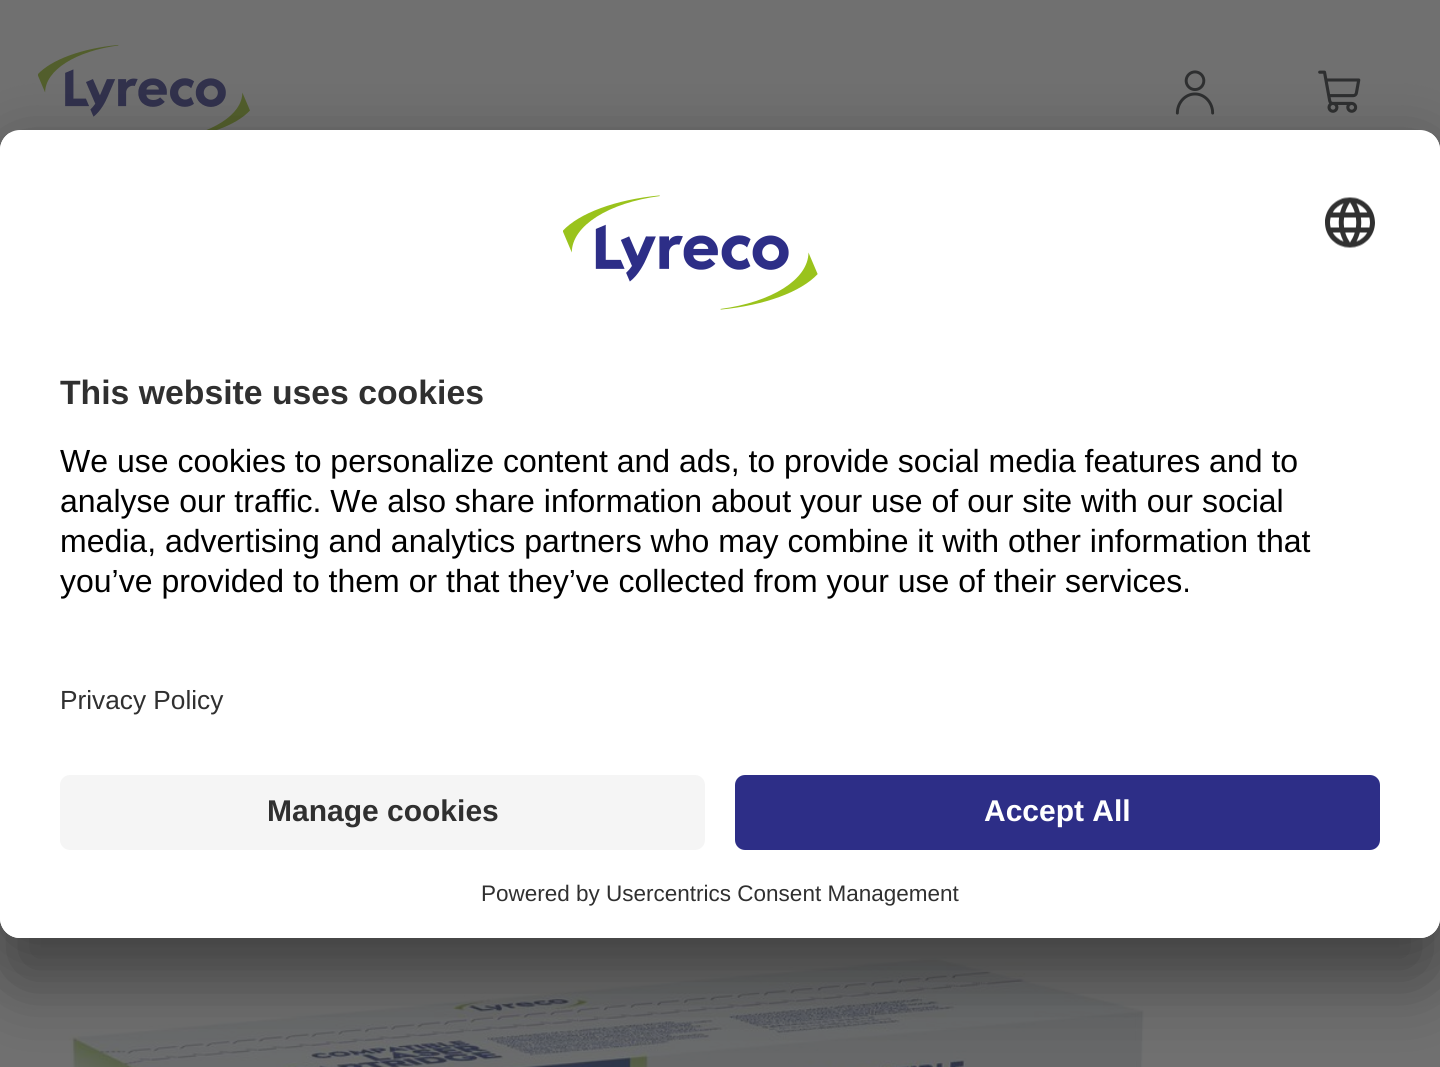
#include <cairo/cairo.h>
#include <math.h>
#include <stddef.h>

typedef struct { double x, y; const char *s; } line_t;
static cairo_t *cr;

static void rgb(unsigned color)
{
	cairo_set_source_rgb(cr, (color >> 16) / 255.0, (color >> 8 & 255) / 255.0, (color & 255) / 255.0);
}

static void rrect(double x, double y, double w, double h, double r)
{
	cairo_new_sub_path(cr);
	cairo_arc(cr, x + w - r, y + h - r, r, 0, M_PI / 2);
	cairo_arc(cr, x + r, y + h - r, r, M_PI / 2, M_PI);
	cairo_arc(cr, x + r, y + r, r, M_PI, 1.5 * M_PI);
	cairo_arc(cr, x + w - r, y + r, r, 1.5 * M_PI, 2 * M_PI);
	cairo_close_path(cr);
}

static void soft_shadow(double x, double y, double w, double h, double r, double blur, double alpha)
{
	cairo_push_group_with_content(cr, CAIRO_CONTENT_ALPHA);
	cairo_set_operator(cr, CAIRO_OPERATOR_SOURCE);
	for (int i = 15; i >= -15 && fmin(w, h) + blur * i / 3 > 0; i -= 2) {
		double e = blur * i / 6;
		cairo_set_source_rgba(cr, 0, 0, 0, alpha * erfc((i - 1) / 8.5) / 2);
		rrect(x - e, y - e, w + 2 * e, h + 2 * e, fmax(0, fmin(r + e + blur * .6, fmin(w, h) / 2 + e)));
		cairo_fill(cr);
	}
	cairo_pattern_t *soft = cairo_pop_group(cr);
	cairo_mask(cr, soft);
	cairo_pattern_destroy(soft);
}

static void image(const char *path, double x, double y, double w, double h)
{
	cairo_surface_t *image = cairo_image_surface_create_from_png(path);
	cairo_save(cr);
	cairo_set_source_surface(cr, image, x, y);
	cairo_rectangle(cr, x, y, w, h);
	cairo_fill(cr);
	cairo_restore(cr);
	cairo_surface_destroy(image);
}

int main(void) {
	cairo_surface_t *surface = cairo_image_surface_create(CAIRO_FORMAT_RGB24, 1440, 1067);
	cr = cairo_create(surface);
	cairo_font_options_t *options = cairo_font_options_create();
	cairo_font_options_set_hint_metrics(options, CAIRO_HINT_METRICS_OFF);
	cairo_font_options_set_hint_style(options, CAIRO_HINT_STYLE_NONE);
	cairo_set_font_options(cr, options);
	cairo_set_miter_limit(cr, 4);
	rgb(0x707070);
	cairo_paint(cr);
	image("img/1.png", 38, 44, 212, 86);
	image("img/2.png", 1175, 70, 40, 45);
	image("img/3.png", 1318, 70, 43, 43);
	image("img/6.png", 68, 957, 1076, 110);
	rgb(0x000000);
	soft_shadow(0, 180, 1440, 808, 20, 35, 0.3);
	soft_shadow(0, 143, 1440, 807, 20, 32.5, 0.22);
	rgb(0xffffff);
	rrect(0, 130, 1440, 808, 20);
	cairo_fill(cr);
	cairo_save(cr);
	rrect(0, 130, 1440, 808, 20);
	cairo_clip(cr);
	cairo_new_path(cr);
	cairo_move_to(cr, 20, 130);
	cairo_line_to(cr, 1420, 130);
	cairo_curve_to(cr, 1431, 130, 1440, 139, 1440, 150);
	cairo_line_to(cr, 1440, 755);
	cairo_line_to(cr, 0, 755);
	cairo_line_to(cr, 0, 150);
	cairo_curve_to(cr, 0, 139, 9, 130, 20, 130);
	cairo_close_path(cr);
	cairo_clip(cr);
	cairo_rectangle(cr, 0, 133, 1440, 622);
	cairo_fill(cr);
	cairo_restore(cr);
	image("img/4.png", 563, 195, 255, 115);
	image("img/5.png", 1325, 197, 50, 51);
	cairo_new_path(cr);
	cairo_move_to(cr, 0, 755);
	cairo_line_to(cr, 1440, 755);
	cairo_line_to(cr, 1440, 918);
	cairo_curve_to(cr, 1440, 929, 1431, 938, 1420, 938);
	cairo_line_to(cr, 20, 938);
	cairo_curve_to(cr, 9, 938, 0, 929, 0, 918);
	cairo_close_path(cr);
	cairo_fill(cr);
	rgb(0xf5f5f5);
	rrect(60, 775, 645, 75, 10);
	cairo_fill(cr);
	rgb(0x2d2e87);
	rrect(735, 775, 645, 75, 10);
	cairo_fill(cr);
	cairo_select_font_face(cr, "Liberation Sans", CAIRO_FONT_SLANT_NORMAL, CAIRO_FONT_WEIGHT_BOLD);
	cairo_set_font_size(cr, 33.75);
	rgb(0x303030);
	cairo_move_to(cr, 60, 404);
	cairo_show_text(cr, "This website uses cookies");
	cairo_select_font_face(cr, "Liberation Sans", CAIRO_FONT_SLANT_NORMAL, CAIRO_FONT_WEIGHT_NORMAL);
	cairo_set_font_size(cr, 32);
	rgb(0x000000);
	{
		static const line_t items[] = {
			{60, 472, "We use cookies to personalize content and ads, to provide social media features and to"},
			{60, 512, "analyse our traffic. We also share information about your use of our site with our social"},
			{60, 552, "media, advertising and analytics partners who may combine it with other information that"},
			{60, 592, "you’ve provided to them or that they’ve collected from your use of their services."},
		};
		for (size_t i = 0; i < sizeof items / sizeof *items; i++) {
			cairo_move_to(cr, items[i].x, items[i].y);
			cairo_show_text(cr, items[i].s);
		}
	}
	cairo_set_font_size(cr, 26.25);
	rgb(0x303030);
	cairo_move_to(cr, 60, 709);
	cairo_show_text(cr, "Privacy Policy");
	cairo_select_font_face(cr, "Liberation Sans", CAIRO_FONT_SLANT_NORMAL, CAIRO_FONT_WEIGHT_BOLD);
	cairo_set_font_size(cr, 30);
	cairo_move_to(cr, 267, 821);
	cairo_show_text(cr, "Manage cookies");
	rgb(0xffffff);
	cairo_move_to(cr, 984, 821);
	cairo_show_text(cr, "Accept All");
	cairo_select_font_face(cr, "Liberation Sans", CAIRO_FONT_SLANT_NORMAL, CAIRO_FONT_WEIGHT_NORMAL);
	cairo_set_font_size(cr, 22.5);
	rgb(0x303030);
	cairo_move_to(cr, 481, 901);
	cairo_show_text(cr, "Powered by Usercentrics Consent Management");
	cairo_surface_write_to_png(surface, "page.png");
	cairo_font_options_destroy(options);
	cairo_destroy(cr);
	cairo_surface_destroy(surface);
	return 0;
}
